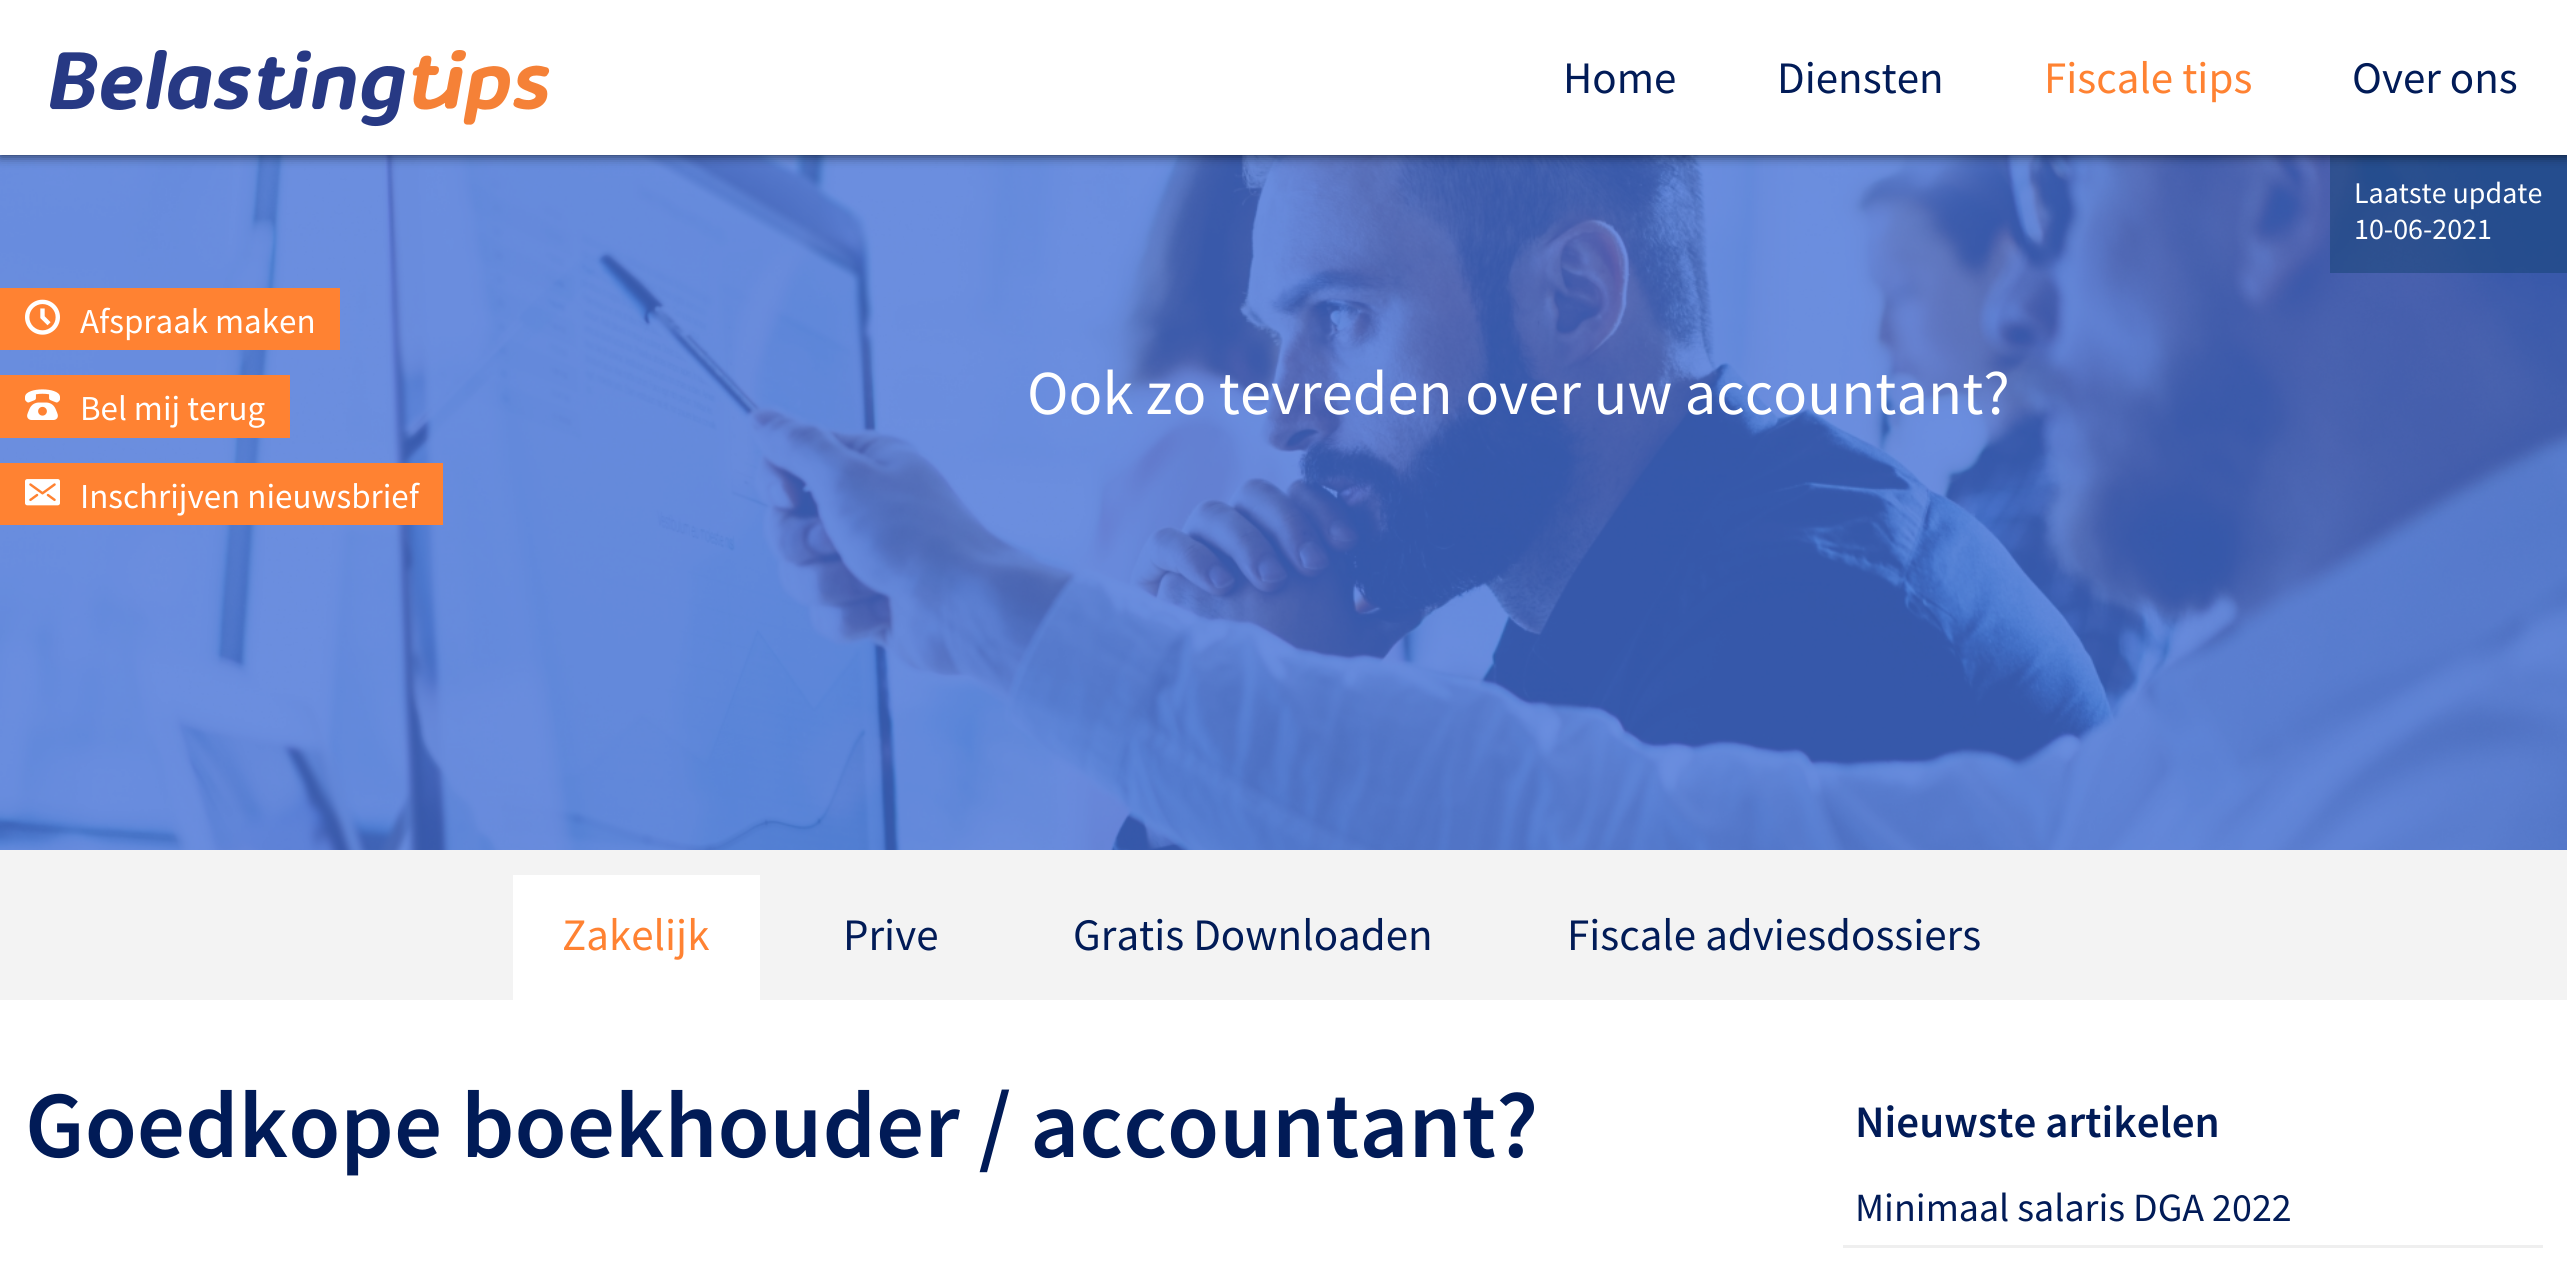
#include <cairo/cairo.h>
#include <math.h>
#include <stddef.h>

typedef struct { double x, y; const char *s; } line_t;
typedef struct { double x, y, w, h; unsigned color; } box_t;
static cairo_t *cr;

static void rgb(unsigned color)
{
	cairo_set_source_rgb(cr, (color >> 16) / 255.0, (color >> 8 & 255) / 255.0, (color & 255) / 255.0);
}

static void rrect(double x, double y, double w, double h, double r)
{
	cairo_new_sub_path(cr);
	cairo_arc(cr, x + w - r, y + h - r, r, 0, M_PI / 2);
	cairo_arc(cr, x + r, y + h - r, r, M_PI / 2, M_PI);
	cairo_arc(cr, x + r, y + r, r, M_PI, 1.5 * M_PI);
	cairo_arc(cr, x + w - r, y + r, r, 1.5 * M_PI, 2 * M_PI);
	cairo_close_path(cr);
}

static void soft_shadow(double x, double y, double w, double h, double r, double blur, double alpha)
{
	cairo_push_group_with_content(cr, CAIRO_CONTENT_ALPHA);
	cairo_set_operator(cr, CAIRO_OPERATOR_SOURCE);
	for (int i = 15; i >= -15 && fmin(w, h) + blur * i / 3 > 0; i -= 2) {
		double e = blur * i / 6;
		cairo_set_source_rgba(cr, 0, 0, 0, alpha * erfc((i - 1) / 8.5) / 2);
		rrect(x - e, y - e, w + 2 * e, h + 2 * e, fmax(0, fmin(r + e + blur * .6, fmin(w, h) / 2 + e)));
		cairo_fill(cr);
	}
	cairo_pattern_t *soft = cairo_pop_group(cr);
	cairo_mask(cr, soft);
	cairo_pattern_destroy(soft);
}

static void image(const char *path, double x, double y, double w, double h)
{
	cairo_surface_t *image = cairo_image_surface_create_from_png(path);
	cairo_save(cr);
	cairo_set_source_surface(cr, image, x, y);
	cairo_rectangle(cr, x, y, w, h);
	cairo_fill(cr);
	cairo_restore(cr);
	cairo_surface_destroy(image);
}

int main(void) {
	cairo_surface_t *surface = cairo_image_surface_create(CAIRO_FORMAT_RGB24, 2567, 1275);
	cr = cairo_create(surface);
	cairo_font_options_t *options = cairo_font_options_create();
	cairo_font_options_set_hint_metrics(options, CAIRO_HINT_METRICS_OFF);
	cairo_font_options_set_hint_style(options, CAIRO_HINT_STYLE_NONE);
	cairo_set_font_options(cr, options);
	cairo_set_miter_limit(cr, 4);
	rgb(0xf3f3f3);
	cairo_paint(cr);
	image("img/2.png", 0, 155, 2567, 695);
	cairo_set_source_rgba(cr, 0.082, 0.259, 0.451, 0.5);
	cairo_rectangle(cr, 2330, 155, 237, 118);
	cairo_fill(cr);
	rgb(0x000000);
	soft_shadow(0, 0, 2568, 155, 0, 6, 0.75);
	rgb(0xffffff);
	cairo_rectangle(cr, 0, 0, 2567, 155);
	cairo_fill(cr);
	image("img/1.png", 50, 50, 500, 77);
	rgb(0xff8232);
	cairo_rectangle(cr, 0, 288, 340, 62);
	cairo_fill(cr);
	image("img/3.png", 25, 299, 35, 36);
	cairo_rectangle(cr, 0, 375, 290, 63);
	cairo_fill(cr);
	image("img/4.png", 25, 389, 35, 31);
	cairo_rectangle(cr, 0, 463, 443, 62);
	cairo_fill(cr);
	image("img/5.png", 25, 479, 35, 27);
	{
		static const box_t items[] = {
			{513, 875, 247, 125, 0xffffff},
			{0, 1000, 2567, 275, 0xffffff},
			{1843, 1245, 700, 3, 0xefefef},
		};
		for (size_t i = 0; i < sizeof items / sizeof *items; i++) {
			rgb(items[i].color);
			cairo_rectangle(cr, items[i].x, items[i].y, items[i].w, items[i].h);
			cairo_fill(cr);
		}
	}
	cairo_select_font_face(cr, "Source Sans Pro", CAIRO_FONT_SLANT_NORMAL, CAIRO_FONT_WEIGHT_NORMAL);
	cairo_set_font_size(cr, 45);
	rgb(0x011b57);
	cairo_move_to(cr, 1563, 93);
	cairo_show_text(cr, "Home");
	cairo_move_to(cr, 1777, 93);
	cairo_show_text(cr, "Diensten");
	rgb(0xff8232);
	cairo_move_to(cr, 2044, 93);
	cairo_show_text(cr, "Fiscale tips");
	rgb(0x011b57);
	cairo_move_to(cr, 2352, 93);
	cairo_show_text(cr, "Over ons");
	cairo_set_font_size(cr, 30);
	rgb(0xffffff);
	cairo_move_to(cr, 2354, 203);
	cairo_show_text(cr, "Laatste update");
	cairo_move_to(cr, 2354, 239);
	cairo_show_text(cr, "10-06-2021");
	cairo_set_font_size(cr, 35);
	{
		static const line_t items[] = {
			{80, 333, "Afspraak maken"},
			{80, 420, "Bel mij terug"},
			{80, 508, "Inschrijven nieuwsbrief"},
		};
		for (size_t i = 0; i < sizeof items / sizeof *items; i++) {
			cairo_move_to(cr, items[i].x, items[i].y);
			cairo_show_text(cr, items[i].s);
		}
	}
	cairo_set_font_size(cr, 62.5);
	cairo_move_to(cr, 1027, 414);
	cairo_show_text(cr, "Ook zo tevreden over uw accountant?");
	cairo_set_font_size(cr, 45);
	rgb(0xff8232);
	cairo_move_to(cr, 562, 950);
	cairo_show_text(cr, "Zakelijk");
	rgb(0x011b57);
	{
		static const line_t items[] = {
			{843, 950, "Prive"},
			{1073, 950, "Gratis Downloaden"},
			{1567, 950, "Fiscale adviesdossiers"},
		};
		for (size_t i = 0; i < sizeof items / sizeof *items; i++) {
			cairo_move_to(cr, items[i].x, items[i].y);
			cairo_show_text(cr, items[i].s);
		}
	}
	cairo_select_font_face(cr, "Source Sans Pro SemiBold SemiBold", CAIRO_FONT_SLANT_NORMAL, CAIRO_FONT_WEIGHT_NORMAL);
	cairo_set_font_size(cr, 95);
	cairo_move_to(cr, 25, 1157);
	cairo_show_text(cr, "Goedkope boekhouder / accountant?");
	cairo_set_font_size(cr, 45);
	cairo_move_to(cr, 1855, 1137);
	cairo_show_text(cr, "Nieuwste artikelen");
	cairo_select_font_face(cr, "Source Sans Pro", CAIRO_FONT_SLANT_NORMAL, CAIRO_FONT_WEIGHT_NORMAL);
	cairo_set_font_size(cr, 40);
	cairo_move_to(cr, 1855, 1221);
	cairo_show_text(cr, "Minimaal salaris DGA 2022");
	cairo_surface_write_to_png(surface, "page.png");
	cairo_font_options_destroy(options);
	cairo_destroy(cr);
	cairo_surface_destroy(surface);
	return 0;
}
